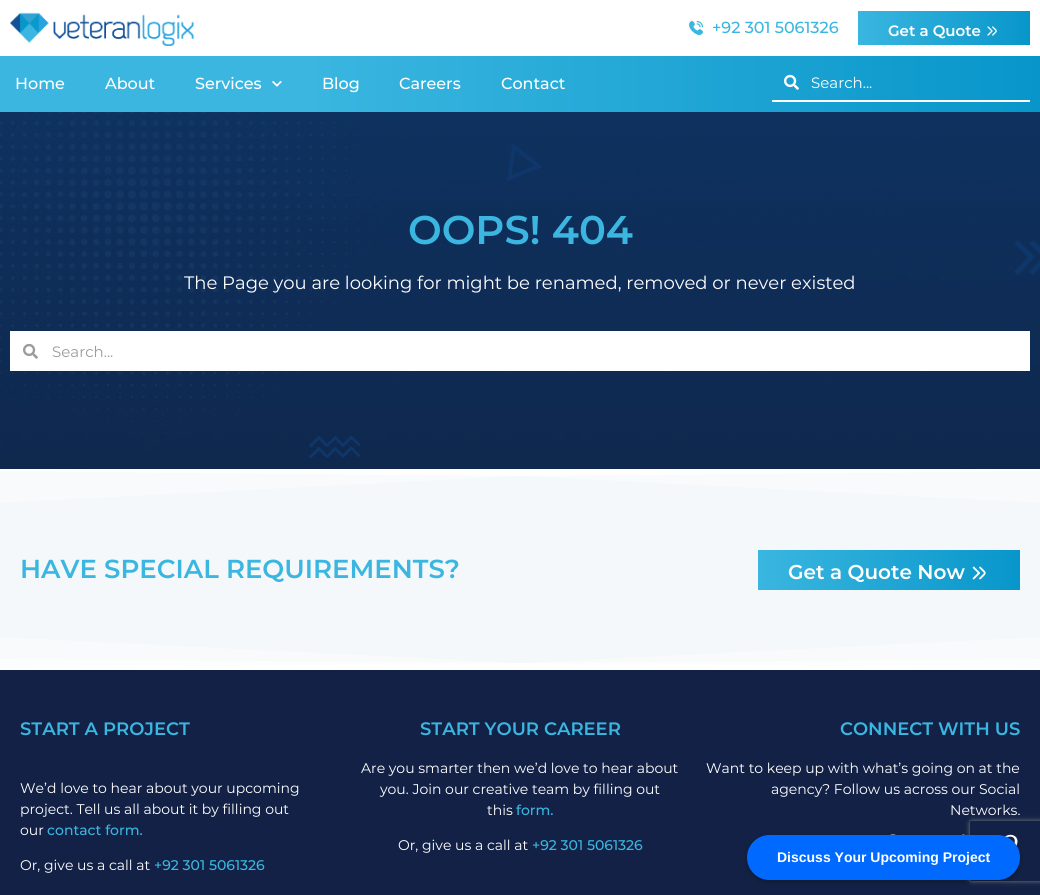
#include <cairo/cairo.h>
#include <math.h>
#include <stddef.h>

typedef struct { double x, y; const char *s; } line_t;
static cairo_t *cr;

static void rgb(unsigned color)
{
	cairo_set_source_rgb(cr, (color >> 16) / 255.0, (color >> 8 & 255) / 255.0, (color & 255) / 255.0);
}

static void rrect(double x, double y, double w, double h, double r)
{
	cairo_new_sub_path(cr);
	cairo_arc(cr, x + w - r, y + h - r, r, 0, M_PI / 2);
	cairo_arc(cr, x + r, y + h - r, r, M_PI / 2, M_PI);
	cairo_arc(cr, x + r, y + r, r, M_PI, 1.5 * M_PI);
	cairo_arc(cr, x + w - r, y + r, r, 1.5 * M_PI, 2 * M_PI);
	cairo_close_path(cr);
}

static void soft_shadow(double x, double y, double w, double h, double r, double blur, double alpha)
{
	cairo_push_group_with_content(cr, CAIRO_CONTENT_ALPHA);
	cairo_set_operator(cr, CAIRO_OPERATOR_SOURCE);
	for (int i = 15; i >= -15 && fmin(w, h) + blur * i / 3 > 0; i -= 2) {
		double e = blur * i / 6;
		cairo_set_source_rgba(cr, 0, 0, 0, alpha * erfc((i - 1) / 8.5) / 2);
		rrect(x - e, y - e, w + 2 * e, h + 2 * e, fmax(0, fmin(r + e + blur * .6, fmin(w, h) / 2 + e)));
		cairo_fill(cr);
	}
	cairo_pattern_t *soft = cairo_pop_group(cr);
	cairo_mask(cr, soft);
	cairo_pattern_destroy(soft);
}

static void image(const char *path, double x, double y, double w, double h)
{
	cairo_surface_t *image = cairo_image_surface_create_from_png(path);
	cairo_save(cr);
	cairo_set_source_surface(cr, image, x, y);
	cairo_rectangle(cr, x, y, w, h);
	cairo_fill(cr);
	cairo_restore(cr);
	cairo_surface_destroy(image);
}

int main(void) {
	cairo_surface_t *surface = cairo_image_surface_create(CAIRO_FORMAT_RGB24, 1040, 895);
	cr = cairo_create(surface);
	cairo_font_options_t *options = cairo_font_options_create();
	cairo_font_options_set_hint_metrics(options, CAIRO_HINT_METRICS_OFF);
	cairo_font_options_set_hint_style(options, CAIRO_HINT_STYLE_NONE);
	cairo_set_font_options(cr, options);
	cairo_set_miter_limit(cr, 4);
	cairo_pattern_t *gradient;
	rgb(0xffffff);
	cairo_paint(cr);
	image("img/1.png", 10, 12, 184, 34);
	image("img/2.png", 689, 21, 14, 14);
	gradient = cairo_pattern_create_linear(858, 28, 1030, 28);
	cairo_pattern_add_color_stop_rgba(gradient, 0, 0.227, 0.714, 0.878, 1);
	cairo_pattern_add_color_stop_rgba(gradient, 1, 0.031, 0.588, 0.792, 1);
	cairo_set_source(cr, gradient);
	cairo_pattern_destroy(gradient);
	cairo_rectangle(cr, 858, 11, 172, 34);
	cairo_fill(cr);
	image("img/3.png", 987, 26, 10, 10);
	gradient = cairo_pattern_create_linear(0, 84, 1040, 84);
	cairo_pattern_add_color_stop_rgba(gradient, 0.3, 0.227, 0.714, 0.878, 1);
	cairo_pattern_add_color_stop_rgba(gradient, 1, 0.031, 0.588, 0.792, 1);
	cairo_set_source(cr, gradient);
	cairo_pattern_destroy(gradient);
	cairo_rectangle(cr, 0, 56, 1040, 56);
	cairo_fill(cr);
	image("img/4.png", 272, 81, 10, 6);
	rgb(0xffffff);
	cairo_rectangle(cr, 772, 100, 258, 2);
	cairo_fill(cr);
	image("img/5.png", 784, 74, 15, 16);
	image("img/6.png", 0, 112, 1040, 357);
	cairo_rectangle(cr, 10, 331, 1020, 40);
	cairo_fill(cr);
	image("img/7.png", 23, 343, 15, 16);
	rgb(0xf4f8fb);
	cairo_rectangle(cr, 0, 471, 1040, 192);
	cairo_fill(cr);
	cairo_set_source_rgba(cr, 1, 1, 1, 0.33);
	cairo_new_path(cr);
	cairo_move_to(cr, -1, 469);
	cairo_line_to(cr, -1, 503);
	cairo_line_to(cr, 520, 476);
	cairo_line_to(cr, 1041, 503);
	cairo_line_to(cr, 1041, 469);
	cairo_close_path(cr);
	cairo_fill(cr);
	rgb(0xffffff);
	cairo_new_path(cr);
	cairo_move_to(cr, -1, 469);
	cairo_line_to(cr, -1, 471);
	cairo_line_to(cr, 520, 476);
	cairo_line_to(cr, 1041, 471);
	cairo_line_to(cr, 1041, 469);
	cairo_close_path(cr);
	cairo_fill(cr);
	gradient = cairo_pattern_create_linear(758, 570, 1020, 570);
	cairo_pattern_add_color_stop_rgba(gradient, 0, 0.227, 0.714, 0.878, 1);
	cairo_pattern_add_color_stop_rgba(gradient, 1, 0.031, 0.588, 0.792, 1);
	cairo_set_source(cr, gradient);
	cairo_pattern_destroy(gradient);
	cairo_rectangle(cr, 758, 550, 262, 40);
	cairo_fill(cr);
	image("img/8.png", 972, 566, 14, 14);
	rgb(0xf8fafc);
	cairo_new_path(cr);
	cairo_move_to(cr, 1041, 670);
	cairo_line_to(cr, 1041, 637);
	cairo_line_to(cr, 520, 663);
	cairo_line_to(cr, -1, 637);
	cairo_line_to(cr, -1, 670);
	cairo_close_path(cr);
	cairo_fill(cr);
	rgb(0xfcfdfe);
	cairo_new_path(cr);
	cairo_move_to(cr, 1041, 670);
	cairo_line_to(cr, 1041, 659);
	cairo_line_to(cr, 520, 663);
	cairo_line_to(cr, -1, 659);
	cairo_line_to(cr, -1, 670);
	cairo_close_path(cr);
	cairo_fill(cr);
	rgb(0xffffff);
	cairo_new_path(cr);
	cairo_move_to(cr, 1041, 670);
	cairo_line_to(cr, 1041, 668);
	cairo_line_to(cr, 520, 663);
	cairo_line_to(cr, -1, 668);
	cairo_line_to(cr, -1, 670);
	cairo_close_path(cr);
	cairo_fill(cr);
	rgb(0x122145);
	cairo_rectangle(cr, 0, 670, 1040, 225);
	cairo_fill(cr);
	image("img/9.png", 890, 834, 6, 1);
	image("img/10.png", 962, 834, 3, 1);
	image("img/11.png", 1004, 834, 14, 13);
	rgb(0x000000);
	soft_shadow(747, 837, 273, 45, 22.5, 2.5, 0.25);
	cairo_save(cr);
	cairo_set_fill_rule(cr, CAIRO_FILL_RULE_EVEN_ODD);
	cairo_new_path(cr);
	cairo_move_to(cr, 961, 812);
	cairo_line_to(cr, 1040, 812);
	cairo_line_to(cr, 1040, 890);
	cairo_line_to(cr, 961, 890);
	cairo_close_path(cr);
	cairo_move_to(cr, 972, 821);
	cairo_line_to(cr, 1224, 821);
	cairo_curve_to(cr, 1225, 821, 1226, 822, 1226, 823);
	cairo_line_to(cr, 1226, 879);
	cairo_curve_to(cr, 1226, 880, 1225, 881, 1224, 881);
	cairo_line_to(cr, 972, 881);
	cairo_curve_to(cr, 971, 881, 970, 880, 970, 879);
	cairo_line_to(cr, 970, 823);
	cairo_curve_to(cr, 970, 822, 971, 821, 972, 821);
	cairo_close_path(cr);
	cairo_clip(cr);
	rgb(0x808080);
	soft_shadow(970, 821, 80, 60, 2, 2.5, 1);
	cairo_restore(cr);
	rgb(0x0069ff);
	rrect(747, 835, 273, 45, 22.5);
	cairo_fill(cr);
	cairo_select_font_face(cr, "Montserrat Medium", CAIRO_FONT_SLANT_NORMAL, CAIRO_FONT_WEIGHT_NORMAL);
	cairo_set_font_size(cr, 16);
	rgb(0x3ab6e0);
	cairo_move_to(cr, 712, 33);
	cairo_show_text(cr, "+92 301 5061326");
	cairo_select_font_face(cr, "Montserrat SemiBold", CAIRO_FONT_SLANT_NORMAL, CAIRO_FONT_WEIGHT_NORMAL);
	cairo_set_font_size(cr, 15);
	rgb(0xffffff);
	cairo_move_to(cr, 888, 36);
	cairo_show_text(cr, "Get a Quote");
	cairo_select_font_face(cr, "Montserrat Medium", CAIRO_FONT_SLANT_NORMAL, CAIRO_FONT_WEIGHT_NORMAL);
	cairo_set_font_size(cr, 16);
	{
		static const line_t items[] = {
			{15, 89, "Home"},
			{105, 89, "About"},
			{195, 89, "Services"},
			{322, 89, "Blog"},
			{399, 89, "Careers"},
			{501, 89, "Contact"},
		};
		for (size_t i = 0; i < sizeof items / sizeof *items; i++) {
			cairo_move_to(cr, items[i].x, items[i].y);
			cairo_show_text(cr, items[i].s);
		}
	}
	cairo_select_font_face(cr, "Montserrat", CAIRO_FONT_SLANT_NORMAL, CAIRO_FONT_WEIGHT_NORMAL);
	cairo_set_font_size(cr, 15);
	cairo_move_to(cr, 811, 88);
	cairo_show_text(cr, "Search...");
	cairo_select_font_face(cr, "Montserrat SemiBold", CAIRO_FONT_SLANT_NORMAL, CAIRO_FONT_WEIGHT_NORMAL);
	cairo_set_font_size(cr, 40);
	rgb(0x3ab6e0);
	cairo_move_to(cr, 408, 244);
	cairo_show_text(cr, "OOPS! 404");
	cairo_select_font_face(cr, "Montserrat", CAIRO_FONT_SLANT_NORMAL, CAIRO_FONT_WEIGHT_NORMAL);
	cairo_set_font_size(cr, 18);
	rgb(0xffffff);
	cairo_move_to(cr, 184, 289);
	cairo_show_text(cr, "The Page you are looking for might be renamed, removed or never existed");
	cairo_set_font_size(cr, 15);
	rgb(0x989b9f);
	cairo_move_to(cr, 52, 357);
	cairo_show_text(cr, "Search...");
	cairo_select_font_face(cr, "Montserrat SemiBold", CAIRO_FONT_SLANT_NORMAL, CAIRO_FONT_WEIGHT_NORMAL);
	cairo_set_font_size(cr, 26);
	rgb(0x3ab6e0);
	cairo_move_to(cr, 20, 578);
	cairo_show_text(cr, "HAVE SPECIAL REQUIREMENTS?");
	cairo_set_font_size(cr, 20);
	rgb(0xffffff);
	cairo_move_to(cr, 788, 579);
	cairo_show_text(cr, "Get a Quote Now");
	cairo_set_font_size(cr, 18);
	rgb(0x3ab6e0);
	cairo_move_to(cr, 20, 735);
	cairo_show_text(cr, "START A PROJECT");
	cairo_select_font_face(cr, "Montserrat", CAIRO_FONT_SLANT_NORMAL, CAIRO_FONT_WEIGHT_NORMAL);
	cairo_set_font_size(cr, 14);
	rgb(0xffffff);
	{
		static const line_t items[] = {
			{20, 793, "We’d love to hear about your upcoming"},
			{20, 814, "project. Tell us all about it by filling out"},
			{20, 835, "our"},
		};
		for (size_t i = 0; i < sizeof items / sizeof *items; i++) {
			cairo_move_to(cr, items[i].x, items[i].y);
			cairo_show_text(cr, items[i].s);
		}
	}
	cairo_select_font_face(cr, "Montserrat Medium", CAIRO_FONT_SLANT_NORMAL, CAIRO_FONT_WEIGHT_NORMAL);
	rgb(0x3ab6e0);
	cairo_move_to(cr, 47, 835);
	cairo_show_text(cr, "contact form.");
	cairo_select_font_face(cr, "Montserrat", CAIRO_FONT_SLANT_NORMAL, CAIRO_FONT_WEIGHT_NORMAL);
	rgb(0xffffff);
	cairo_move_to(cr, 20, 870);
	cairo_show_text(cr, "Or, give us a call at");
	cairo_select_font_face(cr, "Montserrat Medium", CAIRO_FONT_SLANT_NORMAL, CAIRO_FONT_WEIGHT_NORMAL);
	rgb(0x3ab6e0);
	cairo_move_to(cr, 154, 870);
	cairo_show_text(cr, "+92 301 5061326");
	cairo_select_font_face(cr, "Montserrat SemiBold", CAIRO_FONT_SLANT_NORMAL, CAIRO_FONT_WEIGHT_NORMAL);
	cairo_set_font_size(cr, 18);
	cairo_move_to(cr, 420, 735);
	cairo_show_text(cr, "START YOUR CAREER");
	cairo_select_font_face(cr, "Montserrat", CAIRO_FONT_SLANT_NORMAL, CAIRO_FONT_WEIGHT_NORMAL);
	cairo_set_font_size(cr, 14);
	rgb(0xffffff);
	{
		static const line_t items[] = {
			{361, 773, "Are you smarter then we’d love to hear about"},
			{380, 794, "you. Join our creative team by filling out"},
			{487, 815, "this"},
		};
		for (size_t i = 0; i < sizeof items / sizeof *items; i++) {
			cairo_move_to(cr, items[i].x, items[i].y);
			cairo_show_text(cr, items[i].s);
		}
	}
	cairo_select_font_face(cr, "Montserrat Medium", CAIRO_FONT_SLANT_NORMAL, CAIRO_FONT_WEIGHT_NORMAL);
	rgb(0x3ab6e0);
	cairo_move_to(cr, 516, 815);
	cairo_show_text(cr, "form.");
	cairo_select_font_face(cr, "Montserrat", CAIRO_FONT_SLANT_NORMAL, CAIRO_FONT_WEIGHT_NORMAL);
	rgb(0xffffff);
	cairo_move_to(cr, 398, 850);
	cairo_show_text(cr, "Or, give us a call at");
	cairo_select_font_face(cr, "Montserrat Medium", CAIRO_FONT_SLANT_NORMAL, CAIRO_FONT_WEIGHT_NORMAL);
	rgb(0x3ab6e0);
	cairo_move_to(cr, 532, 850);
	cairo_show_text(cr, "+92 301 5061326");
	cairo_select_font_face(cr, "Montserrat SemiBold", CAIRO_FONT_SLANT_NORMAL, CAIRO_FONT_WEIGHT_NORMAL);
	cairo_set_font_size(cr, 18);
	cairo_move_to(cr, 840, 735);
	cairo_show_text(cr, "CONNECT WITH US");
	cairo_select_font_face(cr, "Montserrat", CAIRO_FONT_SLANT_NORMAL, CAIRO_FONT_WEIGHT_NORMAL);
	cairo_set_font_size(cr, 14);
	rgb(0xffffff);
	{
		static const line_t items[] = {
			{706, 773, "Want to keep up with what’s going on at the"},
			{771, 794, "agency? Follow us across our Social"},
			{950, 815, "Networks."},
		};
		for (size_t i = 0; i < sizeof items / sizeof *items; i++) {
			cairo_move_to(cr, items[i].x, items[i].y);
			cairo_show_text(cr, items[i].s);
		}
	}
	cairo_select_font_face(cr, "Liberation Sans", CAIRO_FONT_SLANT_NORMAL, CAIRO_FONT_WEIGHT_BOLD);
	cairo_move_to(cr, 777, 862);
	cairo_show_text(cr, "Discuss Your Upcoming Project");
	cairo_surface_write_to_png(surface, "page.png");
	cairo_font_options_destroy(options);
	cairo_destroy(cr);
	cairo_surface_destroy(surface);
	return 0;
}
